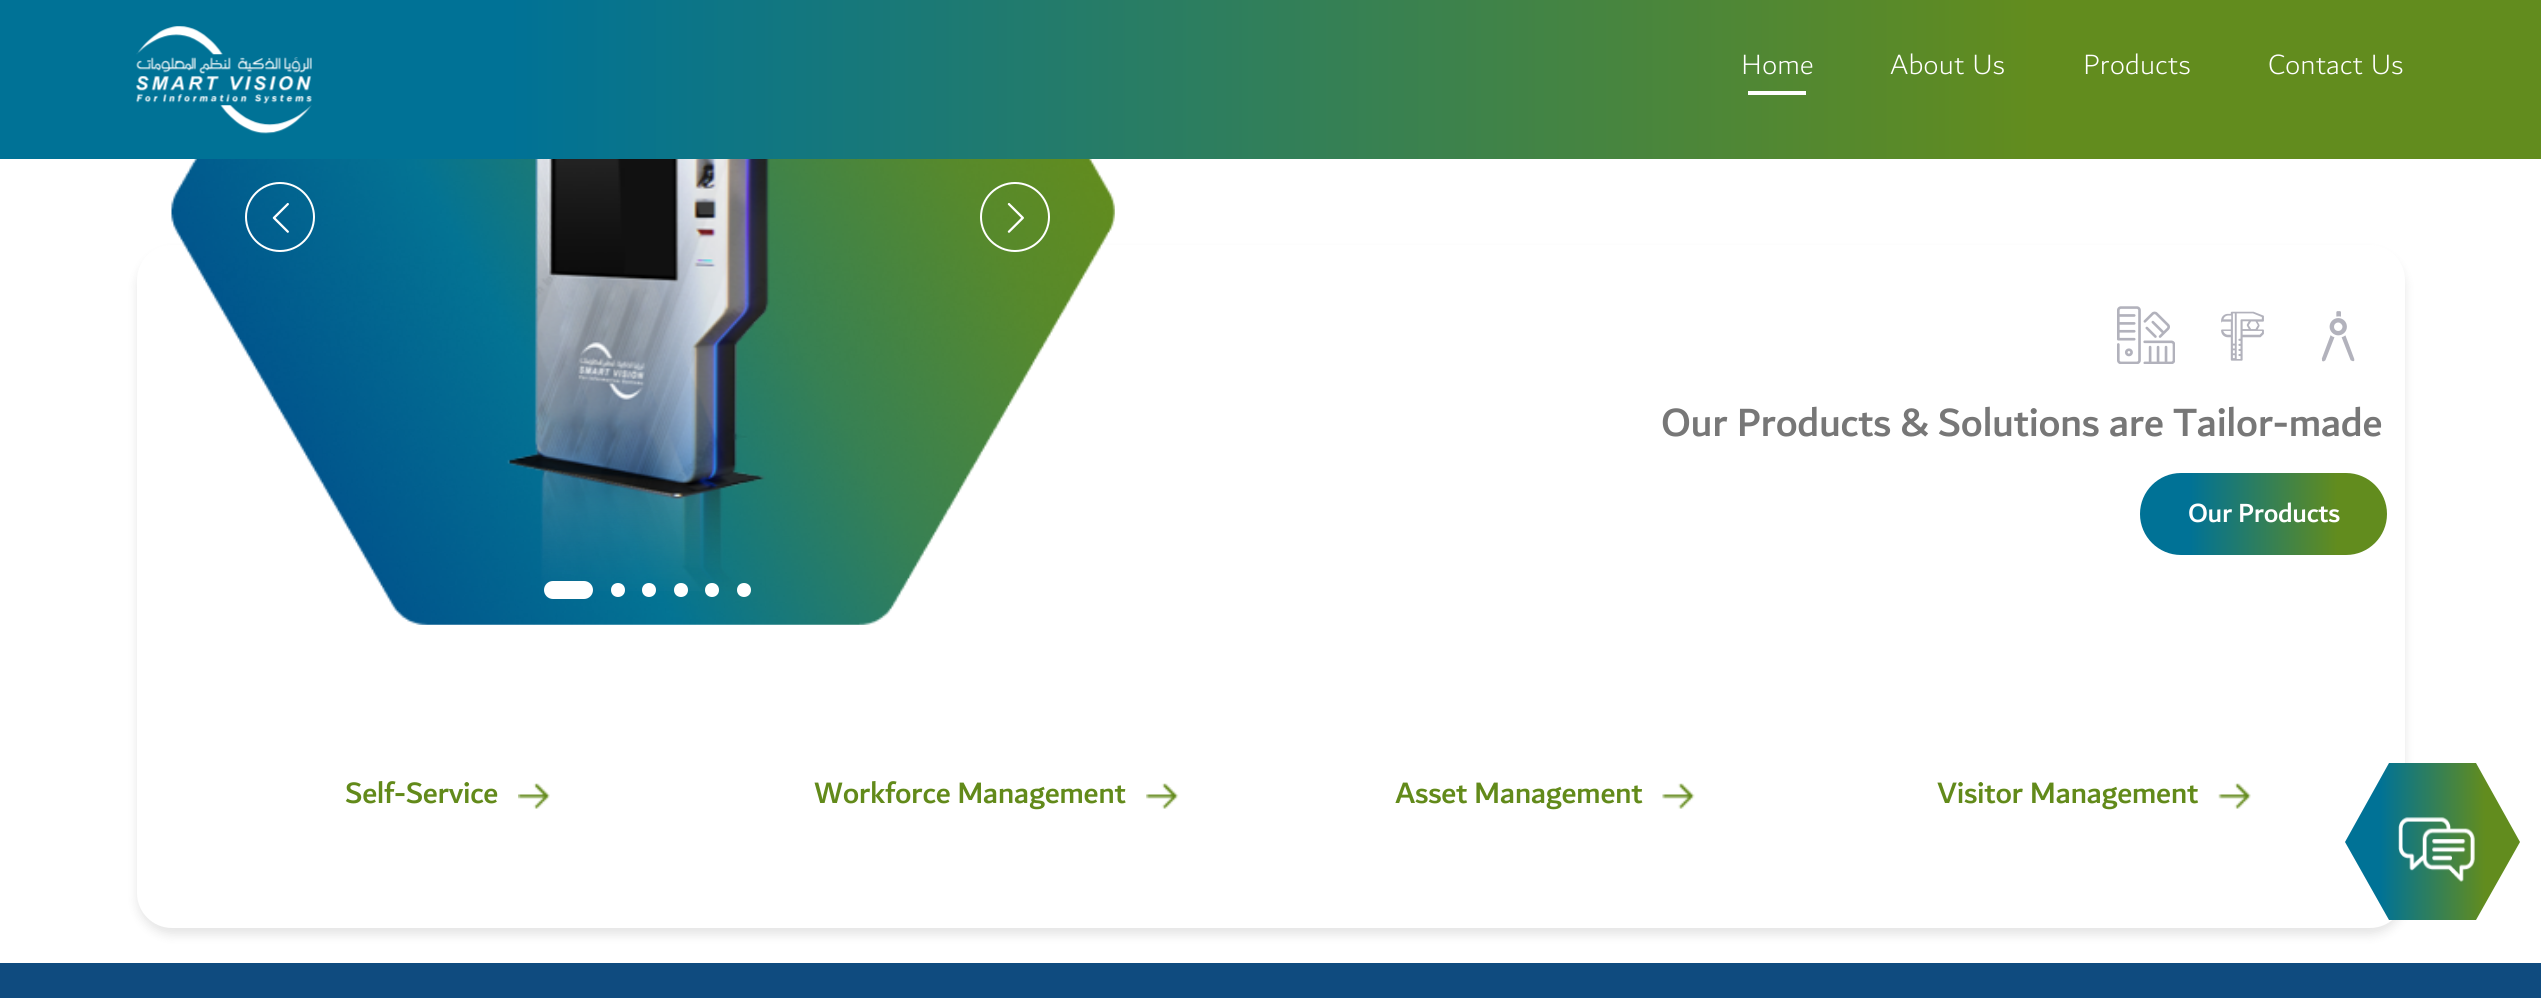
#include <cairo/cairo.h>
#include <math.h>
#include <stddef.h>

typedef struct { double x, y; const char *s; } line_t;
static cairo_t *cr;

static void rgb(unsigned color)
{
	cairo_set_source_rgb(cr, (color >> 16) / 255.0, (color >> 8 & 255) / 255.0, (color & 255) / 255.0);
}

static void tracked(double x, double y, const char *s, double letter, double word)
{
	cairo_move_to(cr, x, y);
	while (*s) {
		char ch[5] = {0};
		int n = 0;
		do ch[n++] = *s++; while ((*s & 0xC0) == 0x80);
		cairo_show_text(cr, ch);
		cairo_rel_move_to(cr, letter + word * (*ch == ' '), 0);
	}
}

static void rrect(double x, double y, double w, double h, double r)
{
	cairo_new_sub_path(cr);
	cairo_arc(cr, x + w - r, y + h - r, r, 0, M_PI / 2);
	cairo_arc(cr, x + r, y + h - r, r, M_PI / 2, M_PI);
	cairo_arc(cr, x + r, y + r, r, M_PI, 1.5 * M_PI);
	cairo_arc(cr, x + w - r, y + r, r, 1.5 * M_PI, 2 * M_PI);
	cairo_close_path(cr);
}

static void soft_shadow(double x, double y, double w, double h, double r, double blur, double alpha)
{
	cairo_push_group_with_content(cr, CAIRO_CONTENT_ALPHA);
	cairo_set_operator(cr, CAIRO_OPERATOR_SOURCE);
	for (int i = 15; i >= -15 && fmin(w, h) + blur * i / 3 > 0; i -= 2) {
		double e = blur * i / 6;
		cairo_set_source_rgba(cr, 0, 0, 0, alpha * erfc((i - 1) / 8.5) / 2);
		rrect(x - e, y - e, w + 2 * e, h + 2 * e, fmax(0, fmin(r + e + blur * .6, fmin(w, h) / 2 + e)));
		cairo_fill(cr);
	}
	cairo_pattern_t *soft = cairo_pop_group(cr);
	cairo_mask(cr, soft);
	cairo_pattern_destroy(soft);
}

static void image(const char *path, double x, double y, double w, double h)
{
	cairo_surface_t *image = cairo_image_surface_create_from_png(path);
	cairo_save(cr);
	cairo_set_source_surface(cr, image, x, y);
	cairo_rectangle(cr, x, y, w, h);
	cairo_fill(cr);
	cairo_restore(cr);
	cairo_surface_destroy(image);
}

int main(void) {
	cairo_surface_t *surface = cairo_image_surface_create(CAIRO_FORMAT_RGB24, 2541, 998);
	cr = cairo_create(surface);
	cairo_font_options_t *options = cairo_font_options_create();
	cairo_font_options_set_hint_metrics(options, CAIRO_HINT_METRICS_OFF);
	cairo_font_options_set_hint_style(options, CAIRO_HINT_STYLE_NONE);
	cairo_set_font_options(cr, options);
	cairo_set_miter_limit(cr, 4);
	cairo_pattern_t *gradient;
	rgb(0xffffff);
	cairo_paint(cr);
	gradient = cairo_pattern_create_linear(0, 80, 2541, 80);
	cairo_pattern_add_color_stop_rgba(gradient, 0.2, 0, 0.447, 0.588, 1);
	cairo_pattern_add_color_stop_rgba(gradient, 0.8, 0.384, 0.549, 0.118, 1);
	cairo_set_source(cr, gradient);
	cairo_pattern_destroy(gradient);
	cairo_rectangle(cr, 0, 0, 2541, 159);
	cairo_fill(cr);
	image("img/1.png", 136, 26, 176, 108);
	rgb(0xffffff);
	cairo_rectangle(cr, 1748, 91, 58, 4);
	cairo_fill(cr);
	rgb(0x000000);
	soft_shadow(137, 252, 2268, 683, 35, 5, 0.1);
	rgb(0xffffff);
	rrect(137, 245, 2268, 683, 35);
	cairo_fill(cr);
	image("img/2.png", 171, 159, 944, 466);
	image("img/3.png", 507, 159, 263, 432);
	cairo_arc(cr, 280, 217, 34, 0, 2 * M_PI);
	cairo_stroke(cr);
	image("img/4.png", 272, 202, 17, 31);
	cairo_arc(cr, 1015, 217, 34, 0, 2 * M_PI);
	cairo_stroke(cr);
	image("img/5.png", 1007, 203, 17, 30);
	rrect(544, 581, 49, 18, 9);
	cairo_fill(cr);
	cairo_arc(cr, 618, 590, 5, 0, 2 * M_PI);
	cairo_fill_preserve(cr);
	cairo_set_line_width(cr, 4);
	cairo_stroke(cr);
	cairo_arc(cr, 649, 590, 5, 0, 2 * M_PI);
	cairo_fill_preserve(cr);
	cairo_stroke(cr);
	cairo_arc(cr, 681, 590, 5, 0, 2 * M_PI);
	cairo_fill_preserve(cr);
	cairo_stroke(cr);
	cairo_arc(cr, 712, 590, 5, 0, 2 * M_PI);
	cairo_fill_preserve(cr);
	cairo_stroke(cr);
	cairo_arc(cr, 744, 590, 5, 0, 2 * M_PI);
	cairo_fill_preserve(cr);
	cairo_stroke(cr);
	image("img/6.png", 2117, 306, 58, 58);
	image("img/7.png", 2221, 311, 43, 50);
	image("img/8.png", 2321, 311, 34, 51);
	gradient = cairo_pattern_create_linear(2140, 514, 2387, 514);
	cairo_pattern_add_color_stop_rgba(gradient, 0.2, 0, 0.447, 0.588, 1);
	cairo_pattern_add_color_stop_rgba(gradient, 0.8, 0.384, 0.549, 0.118, 1);
	cairo_set_source(cr, gradient);
	cairo_pattern_destroy(gradient);
	rrect(2140, 473, 247, 82, 41);
	cairo_fill(cr);
	image("img/9.png", 518, 783, 32, 26);
	image("img/10.png", 1146, 783, 33, 26);
	image("img/11.png", 1662, 783, 33, 26);
	image("img/12.png", 2218, 783, 33, 26);
	gradient = cairo_pattern_create_linear(2345, 842, 2520, 842);
	cairo_pattern_add_color_stop_rgba(gradient, 0.2, 0, 0.447, 0.588, 1);
	cairo_pattern_add_color_stop_rgba(gradient, 0.8, 0.384, 0.549, 0.118, 1);
	cairo_set_source(cr, gradient);
	cairo_pattern_destroy(gradient);
	cairo_new_path(cr);
	cairo_move_to(cr, 2389, 763);
	cairo_line_to(cr, 2345, 842);
	cairo_line_to(cr, 2389, 920);
	cairo_line_to(cr, 2476, 920);
	cairo_line_to(cr, 2520, 842);
	cairo_line_to(cr, 2476, 763);
	cairo_close_path(cr);
	cairo_fill(cr);
	image("img/13.png", 2398, 817, 77, 65);
	rgb(0x0f4b7f);
	cairo_rectangle(cr, 0, 963, 2541, 35);
	cairo_fill(cr);
	cairo_select_font_face(cr, "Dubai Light", CAIRO_FONT_SLANT_NORMAL, CAIRO_FONT_WEIGHT_NORMAL);
	cairo_set_font_size(cr, 29.75);
	rgb(0xffffff);
	{
		static const line_t items[] = {
			{1741, 74, "Home"},
			{1890, 74, "About Us"},
			{2083, 74, "Products"},
			{2268, 74, "Contact Us"},
		};
		for (size_t i = 0; i < sizeof items / sizeof *items; i++) {
			tracked(items[i].x, items[i].y, items[i].s, 0.25, 0);
		}
	}
	cairo_select_font_face(cr, "Dubai Medium", CAIRO_FONT_SLANT_NORMAL, CAIRO_FONT_WEIGHT_NORMAL);
	cairo_set_font_size(cr, 42);
	rgb(0x777777);
	tracked(1661, 436, "Our Products & Solutions are Tailor-made", -0.35, 0);
	cairo_set_font_size(cr, 28);
	rgb(0xffffff);
	tracked(2188, 522, "Our Products", -0.35, 0);
	cairo_set_font_size(cr, 31.5);
	rgb(0x628a1a);
	{
		static const line_t items[] = {
			{345, 803, "Self-Service"},
			{814, 803, "Workforce Management"},
			{1395, 803, "Asset Management"},
			{1937, 803, "Visitor Management"},
		};
		for (size_t i = 0; i < sizeof items / sizeof *items; i++) {
			tracked(items[i].x, items[i].y, items[i].s, -0.35, 0);
		}
	}
	cairo_surface_write_to_png(surface, "page.png");
	cairo_font_options_destroy(options);
	cairo_destroy(cr);
	cairo_surface_destroy(surface);
	return 0;
}
